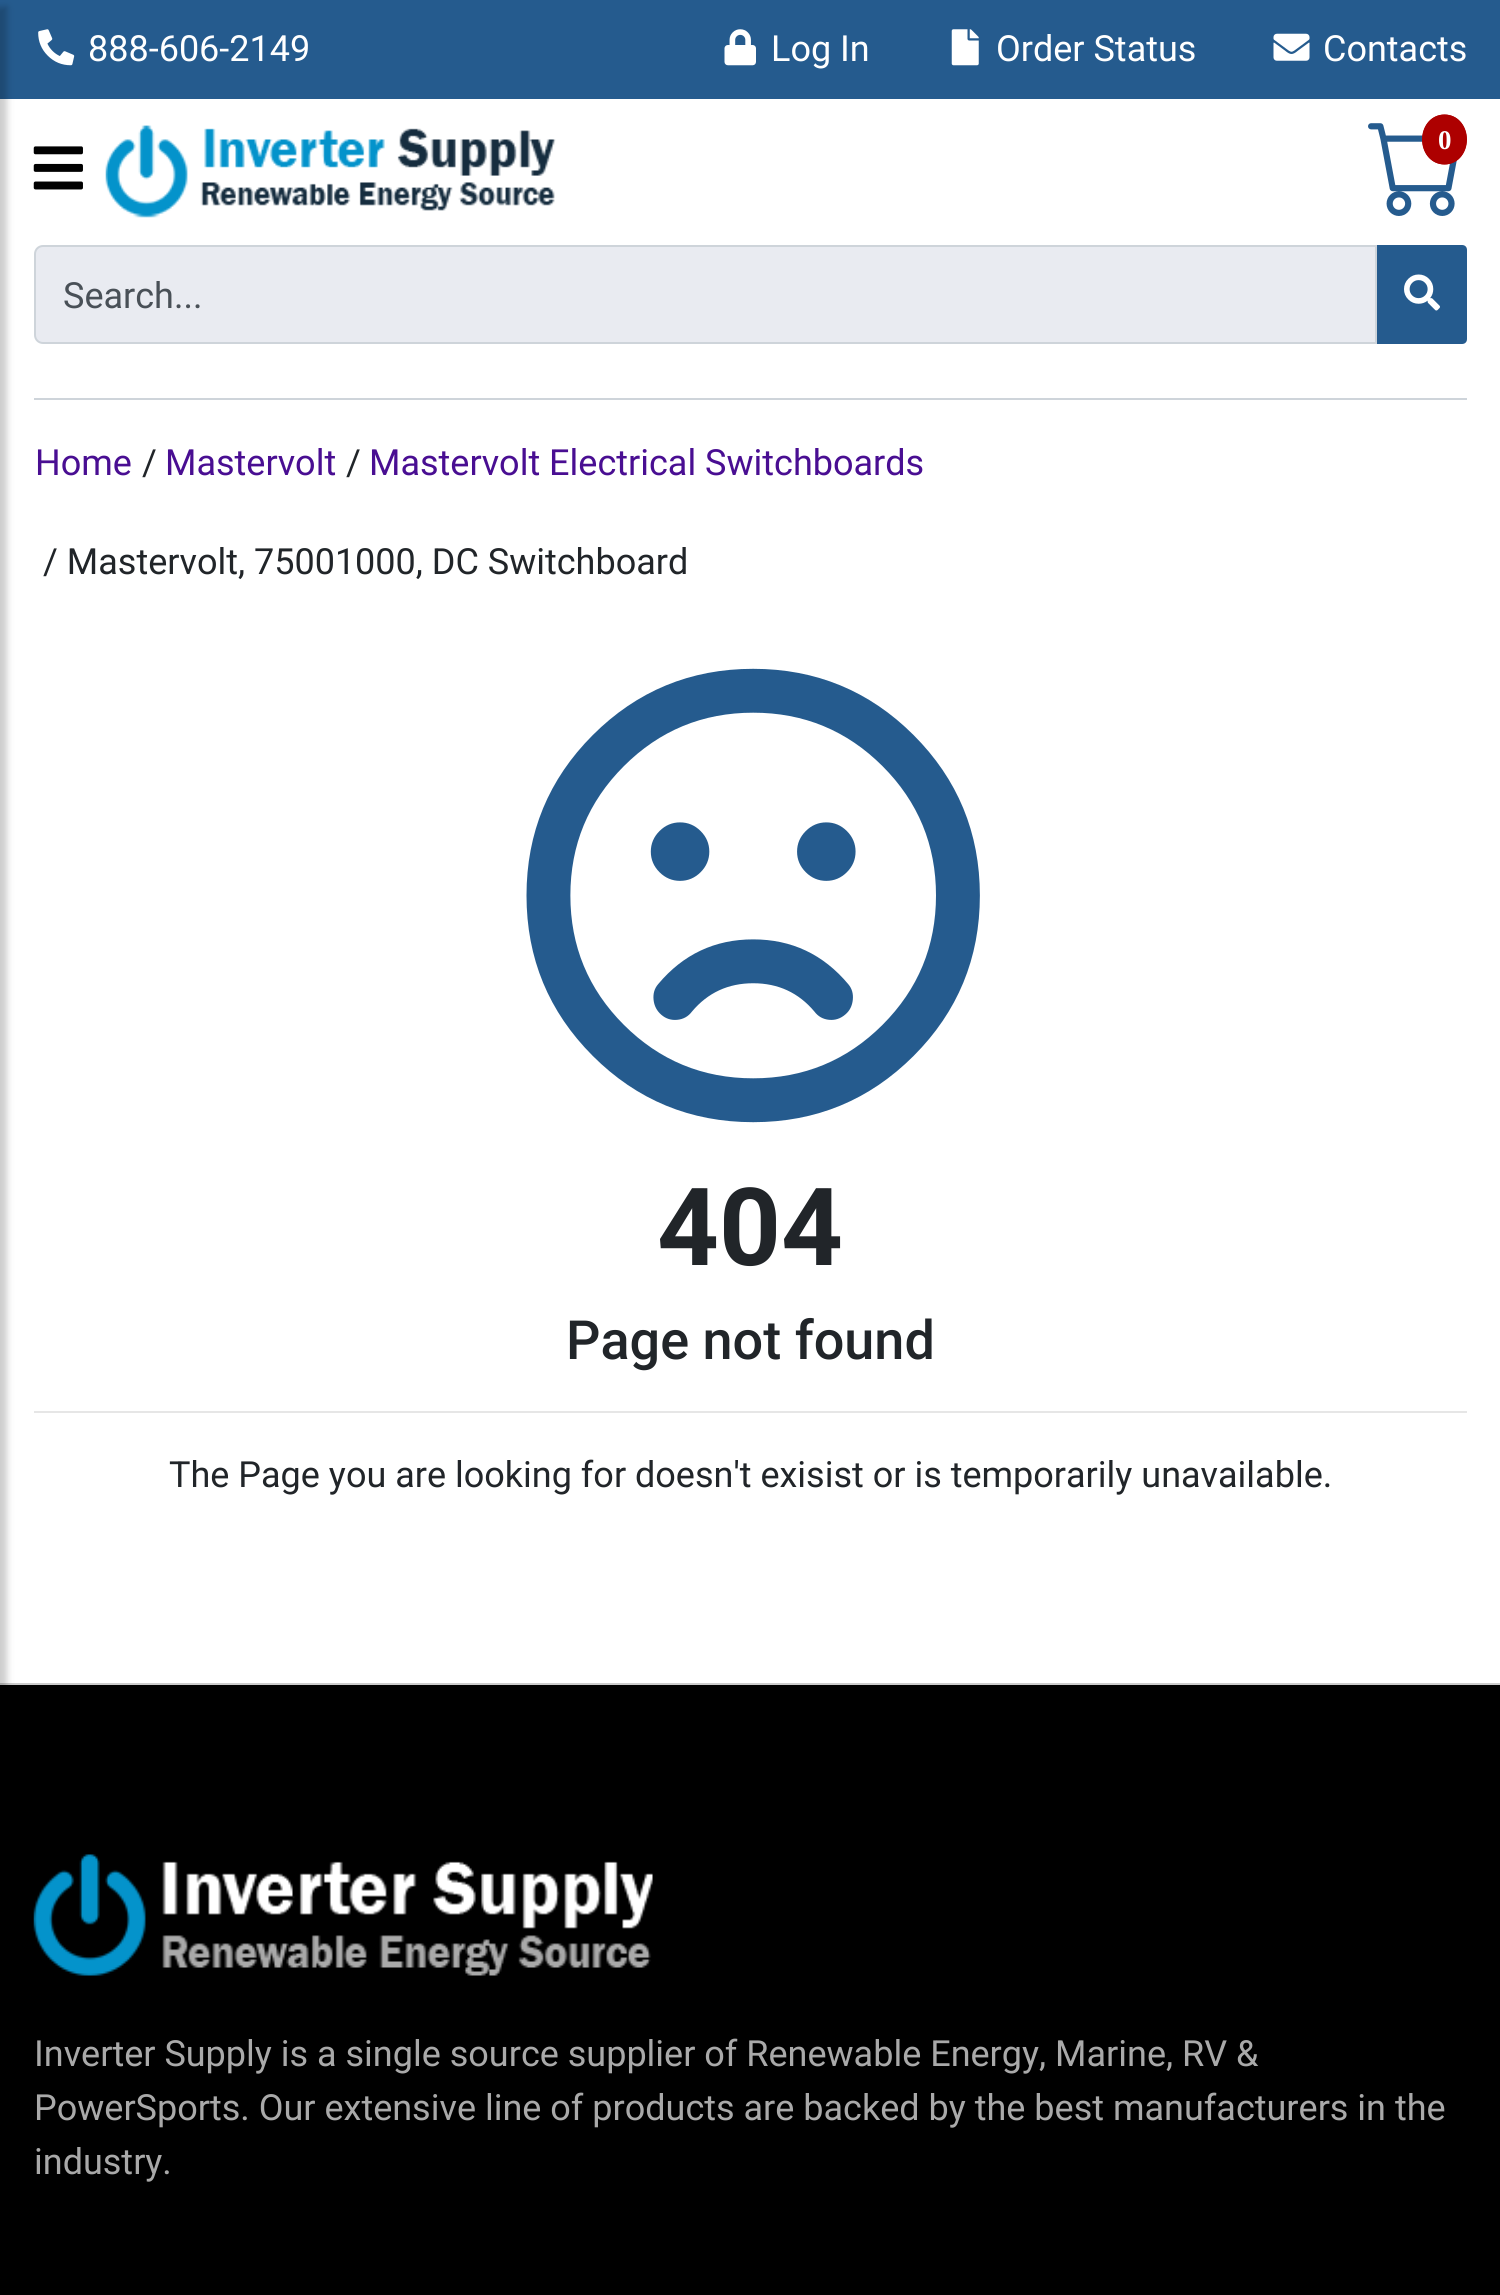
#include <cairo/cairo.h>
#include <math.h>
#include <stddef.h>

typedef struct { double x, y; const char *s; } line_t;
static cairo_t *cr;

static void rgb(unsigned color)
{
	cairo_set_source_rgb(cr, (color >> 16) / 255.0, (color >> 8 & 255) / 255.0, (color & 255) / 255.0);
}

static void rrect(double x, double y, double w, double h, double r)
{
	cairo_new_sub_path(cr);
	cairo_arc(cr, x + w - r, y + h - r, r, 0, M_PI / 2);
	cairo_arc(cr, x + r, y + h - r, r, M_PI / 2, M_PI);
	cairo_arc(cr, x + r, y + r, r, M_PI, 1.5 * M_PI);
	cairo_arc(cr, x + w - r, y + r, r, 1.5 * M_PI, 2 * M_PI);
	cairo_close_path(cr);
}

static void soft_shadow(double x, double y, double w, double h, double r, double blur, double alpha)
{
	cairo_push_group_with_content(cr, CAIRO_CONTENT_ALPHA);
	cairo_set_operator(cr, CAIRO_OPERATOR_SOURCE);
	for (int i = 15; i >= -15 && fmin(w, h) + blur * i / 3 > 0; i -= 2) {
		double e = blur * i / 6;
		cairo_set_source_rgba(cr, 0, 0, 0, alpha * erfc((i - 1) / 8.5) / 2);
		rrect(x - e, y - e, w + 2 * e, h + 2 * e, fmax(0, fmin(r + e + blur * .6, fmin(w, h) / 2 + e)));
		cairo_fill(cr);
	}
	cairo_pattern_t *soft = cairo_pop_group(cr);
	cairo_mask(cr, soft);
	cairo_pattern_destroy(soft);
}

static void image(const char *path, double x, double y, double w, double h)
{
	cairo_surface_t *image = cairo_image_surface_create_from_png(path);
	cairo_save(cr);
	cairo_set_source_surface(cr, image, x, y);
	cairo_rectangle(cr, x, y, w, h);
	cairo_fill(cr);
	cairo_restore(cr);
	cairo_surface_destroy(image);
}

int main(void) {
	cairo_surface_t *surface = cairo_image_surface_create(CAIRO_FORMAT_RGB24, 1500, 2295);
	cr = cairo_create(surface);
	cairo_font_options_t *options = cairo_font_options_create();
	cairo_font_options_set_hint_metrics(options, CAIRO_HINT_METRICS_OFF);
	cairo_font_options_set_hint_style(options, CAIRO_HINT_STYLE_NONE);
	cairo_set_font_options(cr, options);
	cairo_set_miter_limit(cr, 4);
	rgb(0xffffff);
	cairo_paint(cr);
	rgb(0x255b8e);
	cairo_rectangle(cr, 0, 0, 1500, 99);
	cairo_fill(cr);
	image("img/1.png", 38, 29, 37, 37);
	image("img/2.png", 724, 29, 32, 37);
	image("img/3.png", 951, 29, 28, 37);
	image("img/4.png", 1273, 33, 37, 28);
	rgb(0x000000);
	cairo_rectangle(cr, 0, 1685, 1500, 610);
	cairo_fill(cr);
	rgb(0xcccccc);
	cairo_rectangle(cr, 0, 1683, 1500, 2);
	cairo_fill(cr);
	rgb(0x000000);
	soft_shadow(-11, 7, 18, 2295, 0, 3.5, 0.2);
	rgb(0xced4da);
	cairo_rectangle(cr, 34, 398, 1433, 2);
	cairo_fill(cr);
	image("img/5.png", 105, 125, 451, 93);
	image("img/6.png", 1368, 123, 89, 93);
	rgb(0xad0000);
	cairo_new_path(cr);
	cairo_move_to(cr, 1444.5, 114.5);
	cairo_curve_to(cr, 1457, 114.5, 1467, 125.5, 1467, 139.5);
	cairo_curve_to(cr, 1467, 153.5, 1457, 164.5, 1444.5, 164.5);
	cairo_curve_to(cr, 1432, 164.5, 1422, 153.5, 1422, 139.5);
	cairo_curve_to(cr, 1422, 125.5, 1432, 114.5, 1444.5, 114.5);
	cairo_close_path(cr);
	cairo_fill(cr);
	cairo_new_path(cr);
	cairo_move_to(cr, 1444.5, 118);
	cairo_curve_to(cr, 1469.5, 118, 1469.5, 161, 1444.5, 161);
	cairo_curve_to(cr, 1419.5, 161, 1419.5, 118, 1444.5, 118);
	cairo_close_path(cr);
	cairo_set_line_width(cr, 6.8);
	cairo_stroke(cr);
	image("img/7.png", 33, 146, 50, 44);
	rgb(0xe9ebf1);
	cairo_new_path(cr);
	cairo_move_to(cr, 43, 246);
	cairo_line_to(cr, 1376, 246);
	cairo_line_to(cr, 1376, 343);
	cairo_line_to(cr, 43, 343);
	cairo_curve_to(cr, 38.5, 343, 35, 339.5, 35, 335);
	cairo_line_to(cr, 35, 254);
	cairo_curve_to(cr, 35, 249.5, 38.5, 246, 43, 246);
	cairo_close_path(cr);
	cairo_fill_preserve(cr);
	rgb(0xced4da);
	cairo_set_line_width(cr, 2);
	cairo_stroke(cr);
	rgb(0x255b8e);
	cairo_new_path(cr);
	cairo_move_to(cr, 1377, 245);
	cairo_line_to(cr, 1462, 245);
	cairo_curve_to(cr, 1465, 245, 1467, 247, 1467, 250);
	cairo_line_to(cr, 1467, 339);
	cairo_curve_to(cr, 1467, 342, 1465, 344, 1462, 344);
	cairo_line_to(cr, 1377, 344);
	cairo_close_path(cr);
	cairo_fill(cr);
	image("img/8.png", 1404, 274, 36, 37);
	image("img/9.png", 526, 668, 454, 455);
	rgb(0xe6e6e6);
	cairo_rectangle(cr, 34, 1411, 1433, 2);
	cairo_fill(cr);
	image("img/10.png", 33, 1854, 620, 122);
	cairo_select_font_face(cr, "Roboto", CAIRO_FONT_SLANT_NORMAL, CAIRO_FONT_WEIGHT_NORMAL);
	cairo_set_font_size(cr, 36);
	rgb(0xffffff);
	{
		static const line_t items[] = {
			{88, 61, "888-606-2149"},
			{771, 61, "Log In"},
			{996, 61, "Order Status"},
			{1323, 61, "Contacts"},
		};
		for (size_t i = 0; i < sizeof items / sizeof *items; i++) {
			cairo_move_to(cr, items[i].x, items[i].y);
			cairo_show_text(cr, items[i].s);
		}
	}
	cairo_select_font_face(cr, "Liberation Serif", CAIRO_FONT_SLANT_NORMAL, CAIRO_FONT_WEIGHT_BOLD);
	cairo_set_font_size(cr, 27);
	cairo_move_to(cr, 1438, 149);
	cairo_show_text(cr, "0");
	cairo_select_font_face(cr, "Roboto", CAIRO_FONT_SLANT_NORMAL, CAIRO_FONT_WEIGHT_NORMAL);
	cairo_set_font_size(cr, 36);
	rgb(0x495057);
	cairo_move_to(cr, 63, 308);
	cairo_show_text(cr, "Search...");
	rgb(0x490e92);
	cairo_move_to(cr, 35, 475);
	cairo_show_text(cr, "Home");
	rgb(0x212529);
	cairo_move_to(cr, 142, 475);
	cairo_show_text(cr, "/");
	rgb(0x490e92);
	cairo_move_to(cr, 165, 475);
	cairo_show_text(cr, "Mastervolt");
	rgb(0x212529);
	cairo_move_to(cr, 346, 475);
	cairo_show_text(cr, "/");
	rgb(0x490e92);
	cairo_move_to(cr, 369, 475);
	cairo_show_text(cr, "Mastervolt Electrical Switchboards");
	rgb(0x212529);
	cairo_move_to(cr, 43, 574);
	cairo_show_text(cr, "/ Mastervolt, 75001000, DC Switchboard");
	cairo_select_font_face(cr, "Roboto", CAIRO_FONT_SLANT_NORMAL, CAIRO_FONT_WEIGHT_BOLD);
	cairo_set_font_size(cr, 108);
	cairo_move_to(cr, 657, 1265);
	cairo_show_text(cr, "404");
	cairo_select_font_face(cr, "Roboto Medium", CAIRO_FONT_SLANT_NORMAL, CAIRO_FONT_WEIGHT_NORMAL);
	cairo_set_font_size(cr, 54);
	cairo_move_to(cr, 566, 1359);
	cairo_show_text(cr, "Page not found");
	cairo_select_font_face(cr, "Roboto", CAIRO_FONT_SLANT_NORMAL, CAIRO_FONT_WEIGHT_NORMAL);
	cairo_set_font_size(cr, 36);
	cairo_move_to(cr, 169, 1487);
	cairo_show_text(cr, "The Page you are looking for doesn't exisist or is temporarily unavailable.");
	rgb(0xa9a9a9);
	{
		static const line_t items[] = {
			{34, 2066, "Inverter Supply is a single source supplier of Renewable Energy, Marine, RV &"},
			{34, 2120, "PowerSports. Our extensive line of products are backed by the best manufacturers in the"},
			{34, 2174, "industry."},
		};
		for (size_t i = 0; i < sizeof items / sizeof *items; i++) {
			cairo_move_to(cr, items[i].x, items[i].y);
			cairo_show_text(cr, items[i].s);
		}
	}
	cairo_surface_write_to_png(surface, "page.png");
	cairo_font_options_destroy(options);
	cairo_destroy(cr);
	cairo_surface_destroy(surface);
	return 0;
}
